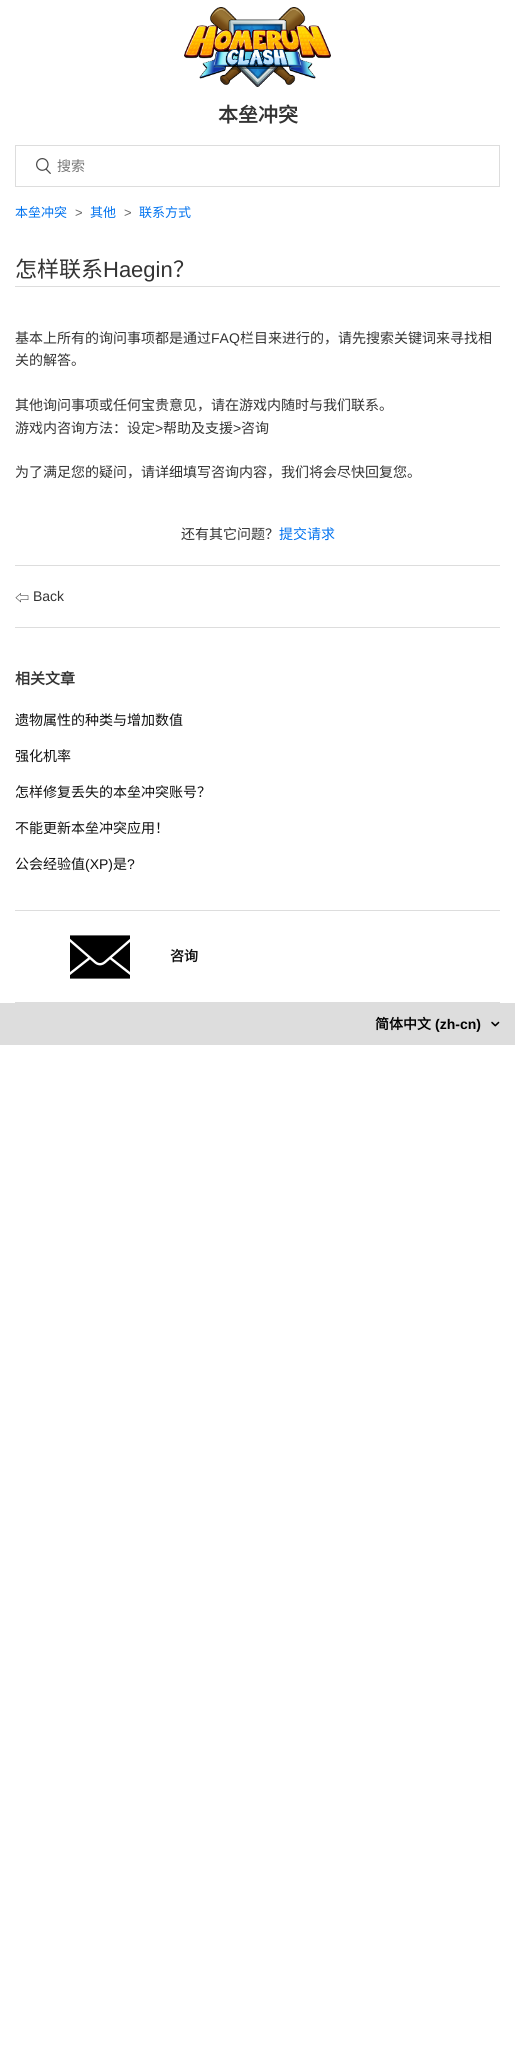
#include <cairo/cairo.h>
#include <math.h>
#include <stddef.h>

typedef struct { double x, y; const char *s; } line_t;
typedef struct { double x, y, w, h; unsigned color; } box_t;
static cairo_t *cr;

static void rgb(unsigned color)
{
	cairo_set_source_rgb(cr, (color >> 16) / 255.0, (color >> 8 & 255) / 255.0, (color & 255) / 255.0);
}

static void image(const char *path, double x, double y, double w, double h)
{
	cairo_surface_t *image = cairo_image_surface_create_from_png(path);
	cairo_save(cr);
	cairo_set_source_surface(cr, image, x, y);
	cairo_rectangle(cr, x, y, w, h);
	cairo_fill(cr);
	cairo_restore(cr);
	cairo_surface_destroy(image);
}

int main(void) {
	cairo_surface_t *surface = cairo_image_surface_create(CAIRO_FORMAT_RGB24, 515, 2053);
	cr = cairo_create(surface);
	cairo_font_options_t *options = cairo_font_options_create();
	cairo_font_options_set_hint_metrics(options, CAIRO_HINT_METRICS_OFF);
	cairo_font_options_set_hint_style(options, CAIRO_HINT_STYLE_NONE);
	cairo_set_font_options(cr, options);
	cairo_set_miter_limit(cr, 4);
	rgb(0xffffff);
	cairo_paint(cr);
	image("img/1.png", 184, 7, 147, 80);
	cairo_rectangle(cr, 15.5, 145.5, 484, 41);
	rgb(0xdddddd);
	cairo_set_line_width(cr, 1);
	cairo_stroke(cr);
	image("img/2.png", 36, 158, 15, 16);
	{
		static const box_t items[] = {
			{15, 286, 485, 1, 0xdddddd},
			{15, 565, 485, 1, 0xdddddd},
			{15, 627, 485, 1, 0xdddddd},
			{15, 910, 485, 1, 0xdddddd},
			{15, 1002, 485, 1, 0xdddddd},
		};
		for (size_t i = 0; i < sizeof items / sizeof *items; i++) {
			rgb(items[i].color);
			cairo_rectangle(cr, items[i].x, items[i].y, items[i].w, items[i].h);
			cairo_fill(cr);
		}
	}
	image("img/3.png", 70, 935, 60, 44);
	cairo_rectangle(cr, 0, 1003, 515, 42);
	cairo_fill(cr);
	image("img/4.png", 491, 1021, 9, 6);
	cairo_select_font_face(cr, "Noto Sans CJK SC", CAIRO_FONT_SLANT_NORMAL, CAIRO_FONT_WEIGHT_BOLD);
	cairo_set_font_size(cr, 20);
	rgb(0x333333);
	cairo_move_to(cr, 218, 122);
	cairo_show_text(cr, "本垒冲突");
	cairo_select_font_face(cr, "Noto Sans CJK SC", CAIRO_FONT_SLANT_NORMAL, CAIRO_FONT_WEIGHT_NORMAL);
	cairo_set_font_size(cr, 14);
	rgb(0x757575);
	cairo_move_to(cr, 57, 171);
	cairo_show_text(cr, "搜索");
	cairo_set_font_size(cr, 13);
	rgb(0x0072ef);
	cairo_move_to(cr, 15, 217);
	cairo_show_text(cr, "本垒冲突");
	cairo_select_font_face(cr, "Liberation Sans", CAIRO_FONT_SLANT_NORMAL, CAIRO_FONT_WEIGHT_NORMAL);
	rgb(0x666666);
	cairo_move_to(cr, 75, 217);
	cairo_show_text(cr, ">");
	cairo_select_font_face(cr, "Noto Sans CJK SC", CAIRO_FONT_SLANT_NORMAL, CAIRO_FONT_WEIGHT_NORMAL);
	rgb(0x0072ef);
	cairo_move_to(cr, 90, 217);
	cairo_show_text(cr, "其他");
	cairo_select_font_face(cr, "Liberation Sans", CAIRO_FONT_SLANT_NORMAL, CAIRO_FONT_WEIGHT_NORMAL);
	rgb(0x666666);
	cairo_move_to(cr, 124, 217);
	cairo_show_text(cr, ">");
	cairo_select_font_face(cr, "Noto Sans CJK SC", CAIRO_FONT_SLANT_NORMAL, CAIRO_FONT_WEIGHT_NORMAL);
	rgb(0x0072ef);
	cairo_move_to(cr, 139, 217);
	cairo_show_text(cr, "联系方式");
	cairo_set_font_size(cr, 22);
	rgb(0x333333);
	cairo_move_to(cr, 15, 277);
	cairo_show_text(cr, "怎样联系");
	cairo_select_font_face(cr, "Liberation Sans", CAIRO_FONT_SLANT_NORMAL, CAIRO_FONT_WEIGHT_NORMAL);
	cairo_move_to(cr, 103, 277);
	cairo_show_text(cr, "Haegin");
	cairo_select_font_face(cr, "Noto Sans CJK SC", CAIRO_FONT_SLANT_NORMAL, CAIRO_FONT_WEIGHT_NORMAL);
	cairo_move_to(cr, 173, 277);
	cairo_show_text(cr, "？");
	cairo_set_font_size(cr, 14);
	cairo_move_to(cr, 15, 343);
	cairo_show_text(cr, "基本上所有的询问事项都是通过");
	cairo_select_font_face(cr, "Liberation Sans", CAIRO_FONT_SLANT_NORMAL, CAIRO_FONT_WEIGHT_NORMAL);
	cairo_move_to(cr, 211, 343);
	cairo_show_text(cr, "FAQ");
	cairo_select_font_face(cr, "Noto Sans CJK SC", CAIRO_FONT_SLANT_NORMAL, CAIRO_FONT_WEIGHT_NORMAL);
	{
		static const line_t items[] = {
			{240, 343, "栏目来进行的，请先搜索关键词来寻找相"},
			{15, 365, "关的解答。"},
			{15, 410, "其他询问事项或任何宝贵意见，请在游戏内随时与我们联系。"},
			{15, 433, "游戏内咨询方法：设定"},
		};
		for (size_t i = 0; i < sizeof items / sizeof *items; i++) {
			cairo_move_to(cr, items[i].x, items[i].y);
			cairo_show_text(cr, items[i].s);
		}
	}
	cairo_select_font_face(cr, "Liberation Sans", CAIRO_FONT_SLANT_NORMAL, CAIRO_FONT_WEIGHT_NORMAL);
	cairo_move_to(cr, 155, 433);
	cairo_show_text(cr, ">");
	cairo_select_font_face(cr, "Noto Sans CJK SC", CAIRO_FONT_SLANT_NORMAL, CAIRO_FONT_WEIGHT_NORMAL);
	cairo_move_to(cr, 163, 433);
	cairo_show_text(cr, "帮助及支援");
	cairo_select_font_face(cr, "Liberation Sans", CAIRO_FONT_SLANT_NORMAL, CAIRO_FONT_WEIGHT_NORMAL);
	cairo_move_to(cr, 233, 433);
	cairo_show_text(cr, ">");
	cairo_select_font_face(cr, "Noto Sans CJK SC", CAIRO_FONT_SLANT_NORMAL, CAIRO_FONT_WEIGHT_NORMAL);
	{
		static const line_t items[] = {
			{241, 433, "咨询"},
			{15, 477, "为了满足您的疑问，请详细填写咨询内容，我们将会尽快回复您。"},
			{181, 539, "还有其它问题？"},
		};
		for (size_t i = 0; i < sizeof items / sizeof *items; i++) {
			cairo_move_to(cr, items[i].x, items[i].y);
			cairo_show_text(cr, items[i].s);
		}
	}
	rgb(0x0072ef);
	cairo_move_to(cr, 279, 539);
	cairo_show_text(cr, "提交请求");
	rgb(0x333333);
	cairo_move_to(cr, 15, 603);
	cairo_show_text(cr, "⇦");
	cairo_select_font_face(cr, "Liberation Sans", CAIRO_FONT_SLANT_NORMAL, CAIRO_FONT_WEIGHT_NORMAL);
	cairo_move_to(cr, 33, 601);
	cairo_show_text(cr, "Back");
	cairo_select_font_face(cr, "Noto Sans CJK SC", CAIRO_FONT_SLANT_NORMAL, CAIRO_FONT_WEIGHT_BOLD);
	cairo_set_font_size(cr, 15);
	cairo_move_to(cr, 15, 684);
	cairo_show_text(cr, "相关文章");
	cairo_select_font_face(cr, "Noto Sans CJK SC", CAIRO_FONT_SLANT_NORMAL, CAIRO_FONT_WEIGHT_NORMAL);
	cairo_set_font_size(cr, 14);
	rgb(0x111111);
	{
		static const line_t items[] = {
			{15, 725, "遗物属性的种类与增加数值"},
			{15, 761, "强化机率"},
			{15, 797, "怎样修复丢失的本垒冲突账号？"},
			{15, 833, "不能更新本垒冲突应用！"},
			{15, 869, "公会经验值"},
		};
		for (size_t i = 0; i < sizeof items / sizeof *items; i++) {
			cairo_move_to(cr, items[i].x, items[i].y);
			cairo_show_text(cr, items[i].s);
		}
	}
	cairo_select_font_face(cr, "Liberation Sans", CAIRO_FONT_SLANT_NORMAL, CAIRO_FONT_WEIGHT_NORMAL);
	cairo_move_to(cr, 85, 869);
	cairo_show_text(cr, "(XP)");
	cairo_select_font_face(cr, "Noto Sans CJK SC", CAIRO_FONT_SLANT_NORMAL, CAIRO_FONT_WEIGHT_NORMAL);
	cairo_move_to(cr, 113, 869);
	cairo_show_text(cr, "是");
	cairo_select_font_face(cr, "Liberation Sans", CAIRO_FONT_SLANT_NORMAL, CAIRO_FONT_WEIGHT_NORMAL);
	cairo_move_to(cr, 127, 869);
	cairo_show_text(cr, "?");
	cairo_select_font_face(cr, "Noto Sans CJK SC", CAIRO_FONT_SLANT_NORMAL, CAIRO_FONT_WEIGHT_BOLD);
	cairo_move_to(cr, 170, 961);
	cairo_show_text(cr, "咨询");
	rgb(0x000000);
	cairo_move_to(cr, 375, 1029);
	cairo_show_text(cr, "简体中文");
	cairo_select_font_face(cr, "Liberation Sans", CAIRO_FONT_SLANT_NORMAL, CAIRO_FONT_WEIGHT_BOLD);
	cairo_move_to(cr, 435, 1029);
	cairo_show_text(cr, "(zh-cn)");
	cairo_surface_write_to_png(surface, "page.png");
	cairo_font_options_destroy(options);
	cairo_destroy(cr);
	cairo_surface_destroy(surface);
	return 0;
}
